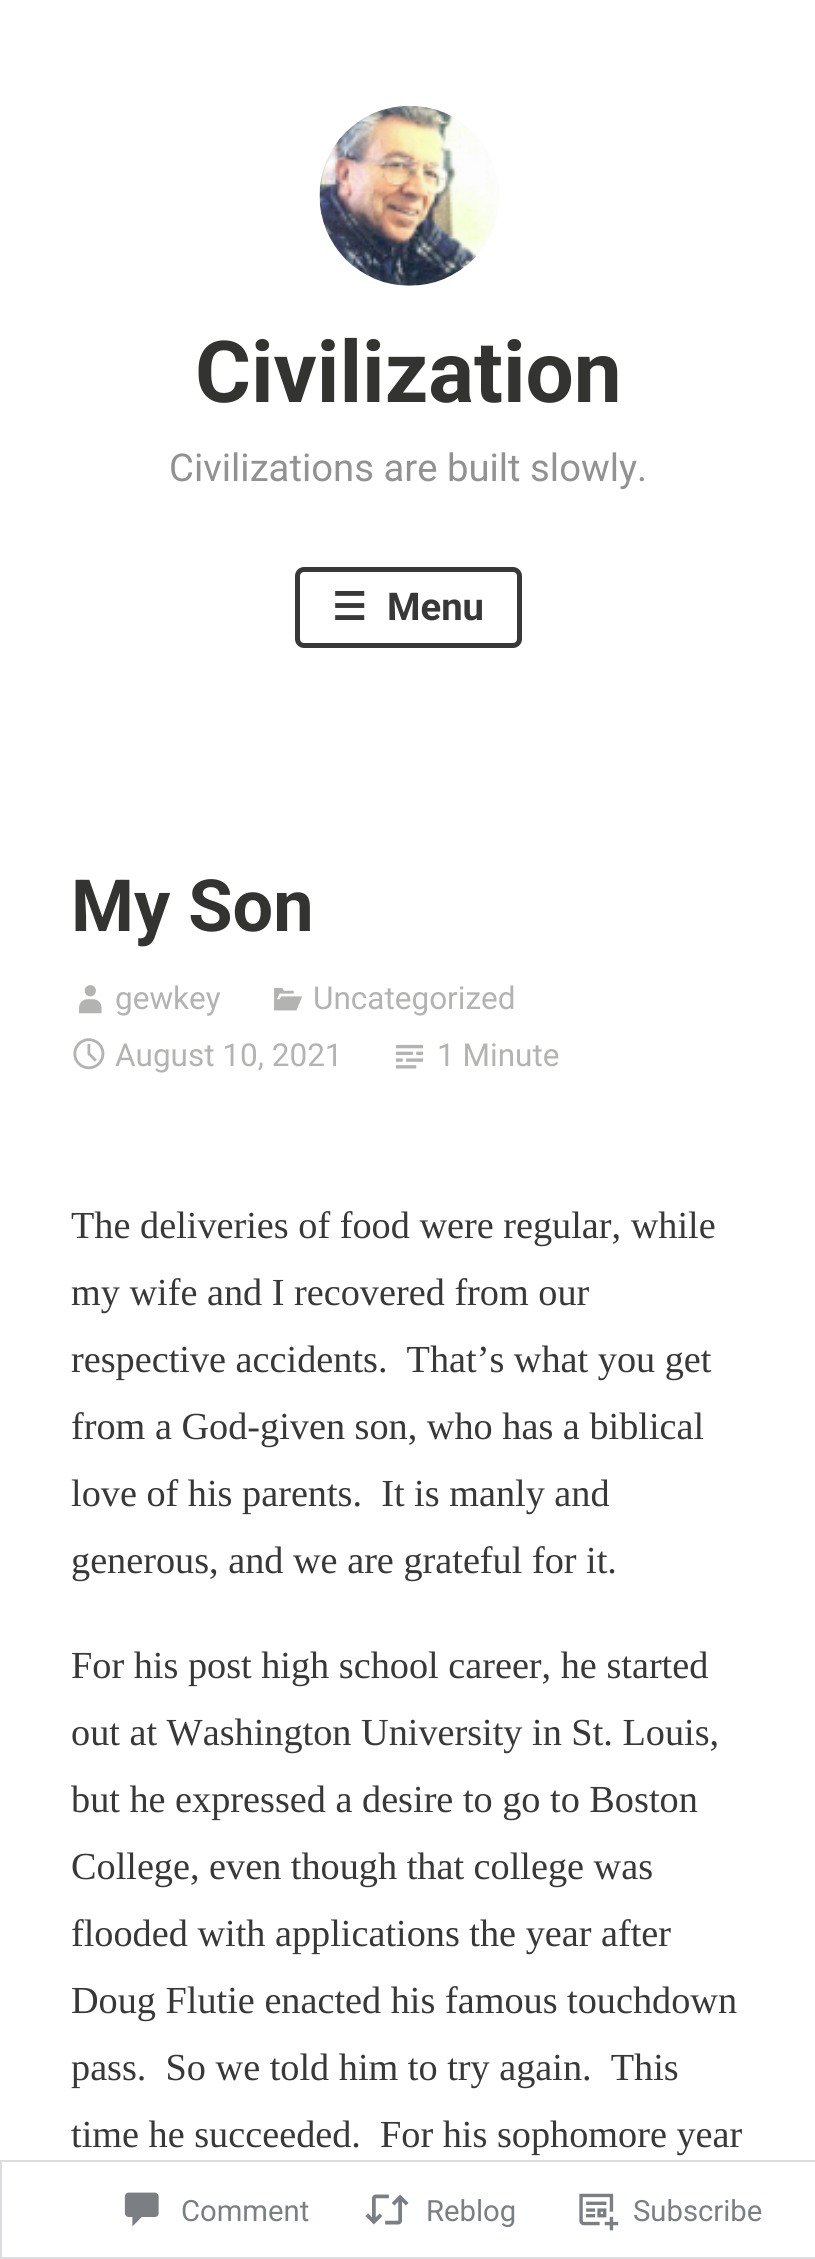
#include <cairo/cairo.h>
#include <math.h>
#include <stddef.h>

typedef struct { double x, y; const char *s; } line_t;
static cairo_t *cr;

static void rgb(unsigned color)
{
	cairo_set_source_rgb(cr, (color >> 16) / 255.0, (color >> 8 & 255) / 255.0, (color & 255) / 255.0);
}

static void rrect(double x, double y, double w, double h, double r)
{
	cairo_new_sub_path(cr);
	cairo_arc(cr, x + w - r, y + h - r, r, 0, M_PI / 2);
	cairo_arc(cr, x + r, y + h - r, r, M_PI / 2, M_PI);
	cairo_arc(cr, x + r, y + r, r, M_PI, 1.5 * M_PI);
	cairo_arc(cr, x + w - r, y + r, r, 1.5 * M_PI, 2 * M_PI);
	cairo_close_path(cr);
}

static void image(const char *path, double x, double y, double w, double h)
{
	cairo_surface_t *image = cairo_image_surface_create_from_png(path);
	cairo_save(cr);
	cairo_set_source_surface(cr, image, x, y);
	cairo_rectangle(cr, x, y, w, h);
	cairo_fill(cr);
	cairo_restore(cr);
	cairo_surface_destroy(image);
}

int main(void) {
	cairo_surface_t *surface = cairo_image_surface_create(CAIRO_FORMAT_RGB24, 815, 2259);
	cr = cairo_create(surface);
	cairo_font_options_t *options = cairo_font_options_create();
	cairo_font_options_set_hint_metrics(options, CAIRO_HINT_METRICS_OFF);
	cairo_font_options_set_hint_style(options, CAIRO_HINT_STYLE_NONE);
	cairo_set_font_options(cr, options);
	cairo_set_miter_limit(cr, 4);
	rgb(0xffffff);
	cairo_paint(cr);
	image("img/1.png", 319, 105, 180, 181);
	rrect(297.5, 569.5, 222, 76, 6.5);
	rgb(0x383838);
	cairo_set_line_width(cr, 5);
	cairo_stroke(cr);
	image("img/2.png", 79, 985, 23, 29);
	image("img/3.png", 274, 987, 28, 24);
	image("img/4.png", 73, 1038, 32, 32);
	image("img/5.png", 396, 1044, 27, 25);
	cairo_rectangle(cr, 1, 2161, 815, 97);
	rgb(0xdddddf);
	cairo_set_line_width(cr, 2);
	cairo_stroke(cr);
	image("img/6.png", 124, 2192, 35, 35);
	image("img/7.png", 365, 2194, 44, 31);
	image("img/8.png", 579, 2193, 40, 38);
	cairo_select_font_face(cr, "Roboto", CAIRO_FONT_SLANT_NORMAL, CAIRO_FONT_WEIGHT_BOLD);
	cairo_set_font_size(cr, 85.5);
	rgb(0x333332);
	cairo_move_to(cr, 195, 402);
	cairo_show_text(cr, "Civilization");
	cairo_select_font_face(cr, "Roboto", CAIRO_FONT_SLANT_NORMAL, CAIRO_FONT_WEIGHT_NORMAL);
	cairo_set_font_size(cr, 38.25);
	rgb(0x929292);
	cairo_move_to(cr, 169, 481);
	cairo_show_text(cr, "Civilizations are built slowly.");
	cairo_select_font_face(cr, "DejaVu Sans", CAIRO_FONT_SLANT_NORMAL, CAIRO_FONT_WEIGHT_BOLD);
	rgb(0x383838);
	cairo_move_to(cr, 332, 620);
	cairo_show_text(cr, "☰");
	cairo_select_font_face(cr, "Roboto", CAIRO_FONT_SLANT_NORMAL, CAIRO_FONT_WEIGHT_BOLD);
	cairo_move_to(cr, 387, 620);
	cairo_show_text(cr, "Menu");
	cairo_set_font_size(cr, 72);
	rgb(0x333332);
	cairo_move_to(cr, 71, 931);
	cairo_show_text(cr, "My Son");
	cairo_select_font_face(cr, "Roboto", CAIRO_FONT_SLANT_NORMAL, CAIRO_FONT_WEIGHT_NORMAL);
	cairo_set_font_size(cr, 31.5);
	rgb(0xb3b3b1);
	{
		static const line_t items[] = {
			{115, 1009, "gewkey"},
			{313, 1009, "Uncategorized"},
			{115, 1066, "August 10, 2021"},
			{437, 1066, "1 Minute"},
		};
		for (size_t i = 0; i < sizeof items / sizeof *items; i++) {
			cairo_move_to(cr, items[i].x, items[i].y);
			cairo_show_text(cr, items[i].s);
		}
	}
	cairo_select_font_face(cr, "Liberation Serif", CAIRO_FONT_SLANT_NORMAL, CAIRO_FONT_WEIGHT_NORMAL);
	cairo_set_font_size(cr, 38.25);
	rgb(0x383838);
	{
		static const line_t items[] = {
			{71, 1238, "The deliveries of food were regular, while"},
			{71, 1305, "my wife and I recovered from our"},
			{71, 1372, "respective accidents.  That’s what you get"},
			{71, 1439, "from a God-given son, who has a biblical"},
			{71, 1506, "love of his parents.  It is manly and"},
			{71, 1573, "generous, and we are grateful for it."},
			{71, 1678, "For his post high school career, he started"},
			{71, 1745, "out at Washington University in St. Louis,"},
			{71, 1812, "but he expressed a desire to go to Boston"},
			{71, 1879, "College, even though that college was"},
			{71, 1946, "flooded with applications the year after"},
			{71, 2013, "Doug Flutie enacted his famous touchdown"},
			{71, 2080, "pass.  So we told him to try again.  This"},
			{71, 2147, "time he succeeded.  For his sophomore year"},
		};
		for (size_t i = 0; i < sizeof items / sizeof *items; i++) {
			cairo_move_to(cr, items[i].x, items[i].y);
			cairo_show_text(cr, items[i].s);
		}
	}
	cairo_select_font_face(cr, "Roboto", CAIRO_FONT_SLANT_NORMAL, CAIRO_FONT_WEIGHT_NORMAL);
	cairo_set_font_size(cr, 29.25);
	rgb(0x7b7f84);
	{
		static const line_t items[] = {
			{181, 2221, "Comment"},
			{426, 2221, "Reblog"},
			{633, 2221, "Subscribe"},
		};
		for (size_t i = 0; i < sizeof items / sizeof *items; i++) {
			cairo_move_to(cr, items[i].x, items[i].y);
			cairo_show_text(cr, items[i].s);
		}
	}
	cairo_surface_write_to_png(surface, "page.png");
	cairo_font_options_destroy(options);
	cairo_destroy(cr);
	cairo_surface_destroy(surface);
	return 0;
}
